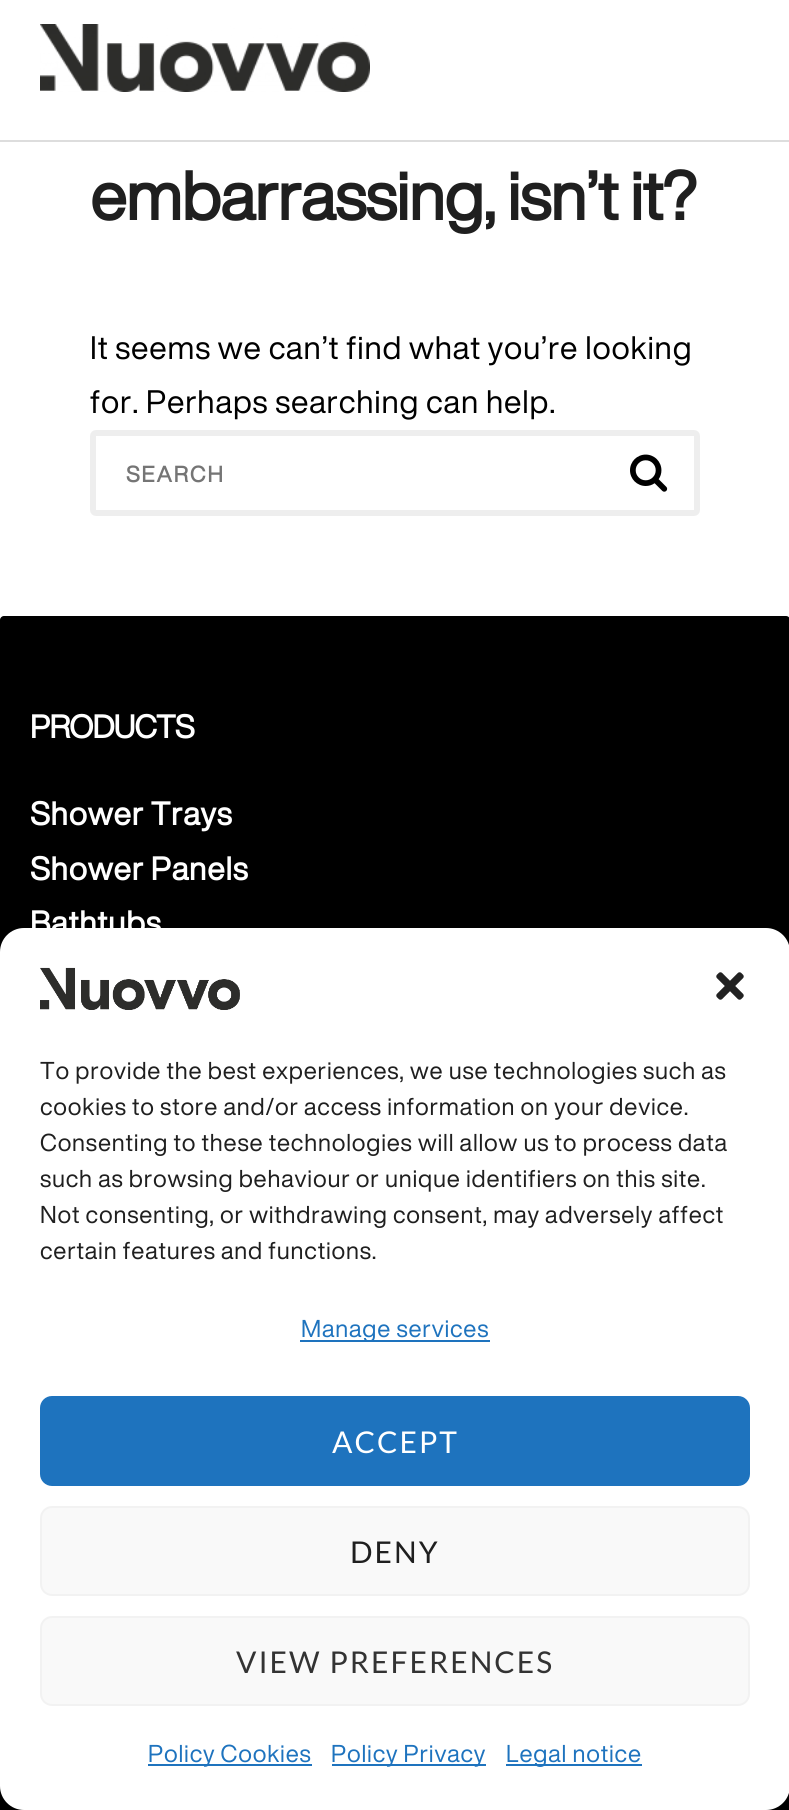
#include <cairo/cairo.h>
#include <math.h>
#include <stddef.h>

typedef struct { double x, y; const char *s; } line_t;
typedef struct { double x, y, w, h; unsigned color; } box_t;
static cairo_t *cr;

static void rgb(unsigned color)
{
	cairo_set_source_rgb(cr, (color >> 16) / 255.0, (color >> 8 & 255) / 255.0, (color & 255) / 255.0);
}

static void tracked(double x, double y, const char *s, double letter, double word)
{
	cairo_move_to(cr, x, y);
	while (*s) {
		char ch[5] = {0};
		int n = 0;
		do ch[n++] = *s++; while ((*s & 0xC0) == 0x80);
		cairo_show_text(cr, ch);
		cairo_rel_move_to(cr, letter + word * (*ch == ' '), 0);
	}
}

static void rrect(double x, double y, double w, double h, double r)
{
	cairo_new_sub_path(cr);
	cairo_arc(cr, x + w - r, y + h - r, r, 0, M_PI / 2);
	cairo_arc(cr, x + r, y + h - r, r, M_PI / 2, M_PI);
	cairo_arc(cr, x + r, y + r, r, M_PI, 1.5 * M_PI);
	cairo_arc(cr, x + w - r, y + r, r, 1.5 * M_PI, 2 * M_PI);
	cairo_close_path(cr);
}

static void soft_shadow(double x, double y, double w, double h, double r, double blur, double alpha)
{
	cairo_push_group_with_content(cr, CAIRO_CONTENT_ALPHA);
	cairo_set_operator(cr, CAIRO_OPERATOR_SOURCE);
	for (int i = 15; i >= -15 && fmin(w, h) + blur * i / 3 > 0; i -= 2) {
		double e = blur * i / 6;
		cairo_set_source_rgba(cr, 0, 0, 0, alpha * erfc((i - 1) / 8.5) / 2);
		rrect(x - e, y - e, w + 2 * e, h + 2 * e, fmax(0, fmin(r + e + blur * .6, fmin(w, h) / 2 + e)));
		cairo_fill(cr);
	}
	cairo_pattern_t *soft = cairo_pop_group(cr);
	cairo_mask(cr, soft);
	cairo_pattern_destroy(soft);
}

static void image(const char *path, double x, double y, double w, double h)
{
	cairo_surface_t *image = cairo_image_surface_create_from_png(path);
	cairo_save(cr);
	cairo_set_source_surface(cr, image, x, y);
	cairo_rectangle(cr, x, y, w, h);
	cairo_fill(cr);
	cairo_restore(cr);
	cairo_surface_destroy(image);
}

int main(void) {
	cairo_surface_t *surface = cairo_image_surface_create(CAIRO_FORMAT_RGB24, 789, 1810);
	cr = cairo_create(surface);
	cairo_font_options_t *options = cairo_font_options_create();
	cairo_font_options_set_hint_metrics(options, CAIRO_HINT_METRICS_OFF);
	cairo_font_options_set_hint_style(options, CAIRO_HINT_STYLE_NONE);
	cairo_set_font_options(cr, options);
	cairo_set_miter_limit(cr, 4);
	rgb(0xffffff);
	cairo_paint(cr);
	rgb(0xdddddd);
	cairo_rectangle(cr, 0, 140, 789, 2);
	cairo_fill(cr);
	image("img/1.png", 40, 24, 330, 68);
	rrect(93, 433, 604, 80, 3);
	rgb(0xeeeeee);
	cairo_set_line_width(cr, 6);
	cairo_stroke(cr);
	image("img/2.png", 630, 454, 38, 38);
	rgb(0x000000);
	rrect(0, 616, 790, 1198, 4);
	cairo_fill(cr);
	rgb(0x000000);
	soft_shadow(0, 948, 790, 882, 24, 20, 0.19);
	rgb(0xffffff);
	rrect(0, 928, 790, 882, 24);
	cairo_fill(cr);
	image("img/3.png", 40, 967, 200, 43);
	image("img/4.png", 716, 972, 28, 28);
	rgb(0x1e73be);
	cairo_rectangle(cr, 300, 1340, 190, 2);
	cairo_fill(cr);
	rrect(41, 1397, 708, 88, 11);
	cairo_fill_preserve(cr);
	cairo_set_line_width(cr, 2);
	cairo_stroke(cr);
	rgb(0xf9f9f9);
	rrect(41, 1507, 708, 88, 11);
	cairo_fill_preserve(cr);
	rgb(0xf2f2f2);
	cairo_stroke(cr);
	rgb(0xf9f9f9);
	rrect(41, 1617, 708, 88, 11);
	cairo_fill_preserve(cr);
	rgb(0xf2f2f2);
	cairo_stroke(cr);
	{
		static const box_t items[] = {
			{148, 1764, 164, 2, 0x1e73be},
			{332, 1764, 154, 2, 0x1e73be},
			{506, 1764, 136, 2, 0x1e73be},
		};
		for (size_t i = 0; i < sizeof items / sizeof *items; i++) {
			rgb(items[i].color);
			cairo_rectangle(cr, items[i].x, items[i].y, items[i].w, items[i].h);
			cairo_fill(cr);
		}
	}
	cairo_select_font_face(cr, "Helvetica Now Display", CAIRO_FONT_SLANT_NORMAL, CAIRO_FONT_WEIGHT_BOLD);
	cairo_set_font_size(cr, 67.25);
	rgb(0x1f1f1f);
	tracked(90, 220, "embarrassing, isn’t it?", -0.8, 0);
	cairo_select_font_face(cr, "Helvetica Now Display", CAIRO_FONT_SLANT_NORMAL, CAIRO_FONT_WEIGHT_NORMAL);
	cairo_set_font_size(cr, 32);
	rgb(0x000000);
	tracked(90, 359, "It seems we can’t find what you’re looking", 0.8, 0);
	tracked(90, 413, "for. Perhaps searching can help.", 0.8, 0);
	cairo_select_font_face(cr, "Helvetica Now Display", CAIRO_FONT_SLANT_NORMAL, CAIRO_FONT_WEIGHT_BOLD);
	cairo_set_font_size(cr, 22);
	rgb(0x757575);
	tracked(126, 482, "SEARCH", 2, 0);
	cairo_set_font_size(cr, 32);
	rgb(0xffffff);
	tracked(30, 738, "PRODUCTS", -0.8, 0);
	{
		static const line_t items[] = {
			{30, 825, "Shower Trays"},
			{30, 880, "Shower Panels"},
			{30, 934, "Bathtubs"},
		};
		for (size_t i = 0; i < sizeof items / sizeof *items; i++) {
			tracked(items[i].x, items[i].y, items[i].s, 0.8, 0);
		}
	}
	cairo_select_font_face(cr, "Helvetica Now Display", CAIRO_FONT_SLANT_NORMAL, CAIRO_FONT_WEIGHT_NORMAL);
	cairo_set_font_size(cr, 24);
	rgb(0x1f1f1f);
	{
		static const line_t items[] = {
			{40, 1079, "To provide the best experiences, we use technologies such as"},
			{40, 1115, "cookies to store and/or access information on your device."},
			{40, 1151, "Consenting to these technologies will allow us to process data"},
			{40, 1187, "such as browsing behaviour or unique identifiers on this site."},
			{40, 1223, "Not consenting, or withdrawing consent, may adversely affect"},
			{40, 1259, "certain features and functions."},
		};
		for (size_t i = 0; i < sizeof items / sizeof *items; i++) {
			tracked(items[i].x, items[i].y, items[i].s, 0.8, 0);
		}
	}
	rgb(0x1e73be);
	tracked(301, 1337, "Manage services", 0.8, 0);
	cairo_select_font_face(cr, "Lato", CAIRO_FONT_SLANT_NORMAL, CAIRO_FONT_WEIGHT_NORMAL);
	cairo_set_font_size(cr, 30);
	rgb(0xffffff);
	tracked(332, 1453, "ACCEPT", 2, 0);
	rgb(0x1f1f1f);
	tracked(350, 1563, "DENY", 2, 0);
	rgb(0x333333);
	tracked(236, 1673, "VIEW PREFERENCES", 2, 0);
	cairo_select_font_face(cr, "Helvetica Now Display", CAIRO_FONT_SLANT_NORMAL, CAIRO_FONT_WEIGHT_NORMAL);
	cairo_set_font_size(cr, 24);
	rgb(0x1e73be);
	{
		static const line_t items[] = {
			{148, 1762, "Policy Cookies"},
			{331, 1762, "Policy Privacy"},
			{506, 1762, "Legal notice"},
		};
		for (size_t i = 0; i < sizeof items / sizeof *items; i++) {
			tracked(items[i].x, items[i].y, items[i].s, 0.8, 0);
		}
	}
	cairo_surface_write_to_png(surface, "page.png");
	cairo_font_options_destroy(options);
	cairo_destroy(cr);
	cairo_surface_destroy(surface);
	return 0;
}
